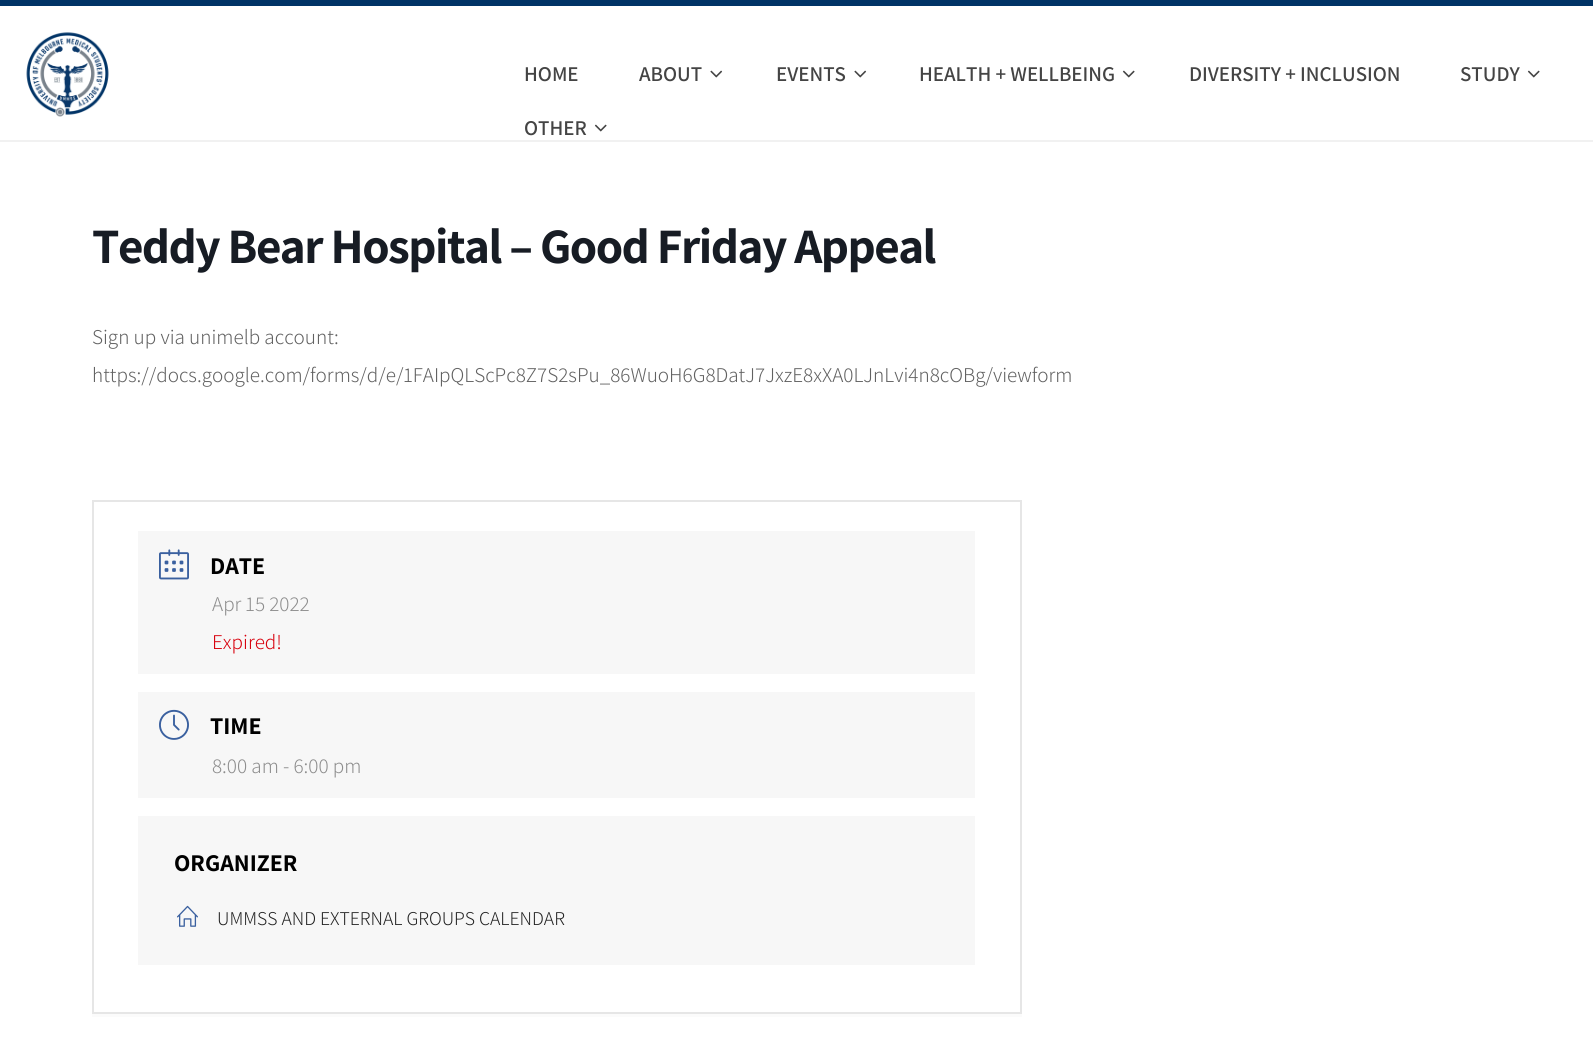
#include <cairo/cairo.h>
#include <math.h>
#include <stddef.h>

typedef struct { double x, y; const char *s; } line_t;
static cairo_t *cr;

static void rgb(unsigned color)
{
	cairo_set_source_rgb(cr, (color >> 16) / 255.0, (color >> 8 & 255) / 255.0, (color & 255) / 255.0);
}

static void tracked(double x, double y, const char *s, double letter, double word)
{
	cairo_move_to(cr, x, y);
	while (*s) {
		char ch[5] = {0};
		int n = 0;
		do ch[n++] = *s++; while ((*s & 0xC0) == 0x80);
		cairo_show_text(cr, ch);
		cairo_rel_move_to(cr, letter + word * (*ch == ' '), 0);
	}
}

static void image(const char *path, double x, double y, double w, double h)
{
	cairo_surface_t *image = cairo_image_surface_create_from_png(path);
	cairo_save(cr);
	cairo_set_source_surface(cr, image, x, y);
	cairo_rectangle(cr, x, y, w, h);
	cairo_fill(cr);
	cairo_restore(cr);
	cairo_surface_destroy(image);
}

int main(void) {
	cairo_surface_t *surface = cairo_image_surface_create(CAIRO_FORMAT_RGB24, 1593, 1056);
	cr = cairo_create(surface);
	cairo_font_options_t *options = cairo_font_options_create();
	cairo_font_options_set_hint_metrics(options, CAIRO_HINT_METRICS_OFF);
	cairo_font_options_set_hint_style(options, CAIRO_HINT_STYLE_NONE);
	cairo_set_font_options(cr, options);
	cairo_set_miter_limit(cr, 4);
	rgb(0xffffff);
	cairo_paint(cr);
	rgb(0x003366);
	cairo_rectangle(cr, 0, 0, 1593, 6);
	cairo_fill(cr);
	rgb(0xf1f1f1);
	cairo_rectangle(cr, 0, 140, 1593, 2);
	cairo_fill(cr);
	image("img/1.png", 26, 32, 83, 85);
	image("img/2.png", 710, 70, 13, 8);
	image("img/2.png", 854, 70, 13, 8);
	image("img/3.png", 1122, 70, 13, 8);
	image("img/3.png", 1527, 70, 13, 8);
	image("img/3.png", 594, 124, 13, 8);
	rgb(0xfbfbfb);
	cairo_new_path(cr);
	cairo_move_to(cr, 92, 1014);
	cairo_line_to(cr, 92, 1017);
	cairo_line_to(cr, 1022, 1017);
	cairo_line_to(cr, 1022, 503);
	cairo_line_to(cr, 1022, 1014);
	cairo_close_path(cr);
	cairo_fill(cr);
	cairo_rectangle(cr, 93, 501, 928, 512);
	rgb(0xe6e6e6);
	cairo_stroke(cr);
	rgb(0xf7f7f7);
	cairo_rectangle(cr, 138, 531, 837, 143);
	cairo_fill(cr);
	image("img/4.png", 159, 549, 30, 31);
	cairo_rectangle(cr, 138, 692, 837, 106);
	cairo_fill(cr);
	image("img/5.png", 159, 709, 30, 31);
	cairo_rectangle(cr, 138, 816, 837, 149);
	cairo_fill(cr);
	image("img/6.png", 177, 905, 21, 22);
	cairo_select_font_face(cr, "Assistant SemiBold", CAIRO_FONT_SLANT_NORMAL, CAIRO_FONT_WEIGHT_NORMAL);
	cairo_set_font_size(cr, 21);
	rgb(0x444444);
	{
		static const line_t items[] = {
			{524, 81, "HOME"},
			{639, 81, "ABOUT"},
			{776, 81, "EVENTS"},
			{919, 81, "HEALTH + WELLBEING"},
			{1189, 81, "DIVERSITY + INCLUSION"},
			{1460, 81, "STUDY"},
			{524, 135, "OTHER"},
		};
		for (size_t i = 0; i < sizeof items / sizeof *items; i++) {
			cairo_move_to(cr, items[i].x, items[i].y);
			cairo_show_text(cr, items[i].s);
		}
	}
	cairo_select_font_face(cr, "Assistant", CAIRO_FONT_SLANT_NORMAL, CAIRO_FONT_WEIGHT_BOLD);
	cairo_set_font_size(cr, 49.5);
	rgb(0x171c24);
	tracked(92, 263, "Teddy Bear Hospital – Good Friday Appeal", -1.5, 0);
	cairo_select_font_face(cr, "Assistant Light", CAIRO_FONT_SLANT_NORMAL, CAIRO_FONT_WEIGHT_NORMAL);
	cairo_set_font_size(cr, 21);
	rgb(0x616161);
	cairo_move_to(cr, 92, 344);
	cairo_show_text(cr, "Sign up via unimelb account:");
	cairo_move_to(cr, 92, 382);
	cairo_show_text(cr, "https://docs.google.com/forms/d/e/1FAIpQLScPc8Z7S2sPu_86WuoH6G8DatJ7JxzE8xXA0LJnLvi4n8cOBg/viewform");
	cairo_select_font_face(cr, "Assistant", CAIRO_FONT_SLANT_NORMAL, CAIRO_FONT_WEIGHT_BOLD);
	cairo_set_font_size(cr, 24);
	rgb(0x000000);
	cairo_move_to(cr, 210, 574);
	cairo_show_text(cr, "DATE");
	cairo_select_font_face(cr, "Assistant Light", CAIRO_FONT_SLANT_NORMAL, CAIRO_FONT_WEIGHT_NORMAL);
	cairo_set_font_size(cr, 21);
	rgb(0x8d8d8d);
	cairo_move_to(cr, 212, 611);
	cairo_show_text(cr, "Apr 15 2022");
	rgb(0xd8000c);
	cairo_move_to(cr, 212, 649);
	cairo_show_text(cr, "Expired!");
	cairo_select_font_face(cr, "Assistant", CAIRO_FONT_SLANT_NORMAL, CAIRO_FONT_WEIGHT_BOLD);
	cairo_set_font_size(cr, 24);
	rgb(0x000000);
	cairo_move_to(cr, 210, 734);
	cairo_show_text(cr, "TIME");
	cairo_select_font_face(cr, "Assistant Light", CAIRO_FONT_SLANT_NORMAL, CAIRO_FONT_WEIGHT_NORMAL);
	cairo_set_font_size(cr, 21);
	rgb(0x8d8d8d);
	cairo_move_to(cr, 212, 773);
	cairo_show_text(cr, "8:00 am - 6:00 pm");
	cairo_select_font_face(cr, "Assistant", CAIRO_FONT_SLANT_NORMAL, CAIRO_FONT_WEIGHT_BOLD);
	cairo_set_font_size(cr, 24);
	rgb(0x000000);
	cairo_move_to(cr, 174, 871);
	cairo_show_text(cr, "ORGANIZER");
	cairo_select_font_face(cr, "Assistant Light", CAIRO_FONT_SLANT_NORMAL, CAIRO_FONT_WEIGHT_NORMAL);
	cairo_set_font_size(cr, 19.5);
	rgb(0x222222);
	cairo_move_to(cr, 217, 925);
	cairo_show_text(cr, "UMMSS AND EXTERNAL GROUPS CALENDAR");
	cairo_surface_write_to_png(surface, "page.png");
	cairo_font_options_destroy(options);
	cairo_destroy(cr);
	cairo_surface_destroy(surface);
	return 0;
}
